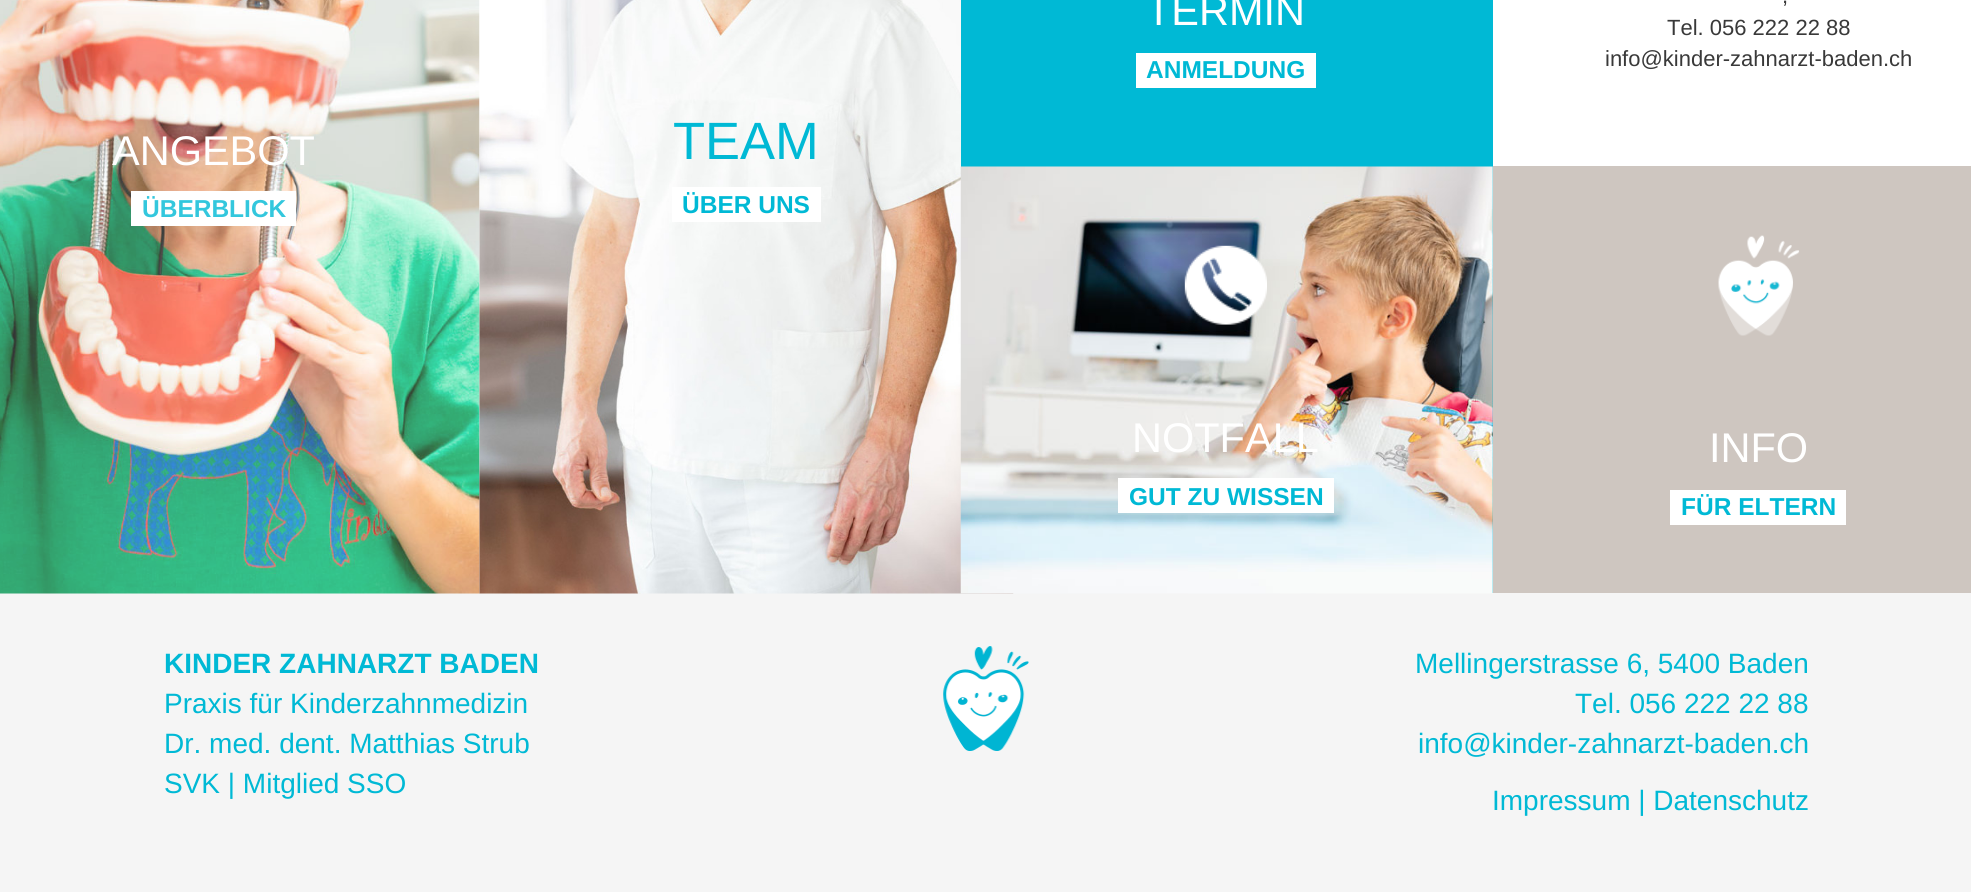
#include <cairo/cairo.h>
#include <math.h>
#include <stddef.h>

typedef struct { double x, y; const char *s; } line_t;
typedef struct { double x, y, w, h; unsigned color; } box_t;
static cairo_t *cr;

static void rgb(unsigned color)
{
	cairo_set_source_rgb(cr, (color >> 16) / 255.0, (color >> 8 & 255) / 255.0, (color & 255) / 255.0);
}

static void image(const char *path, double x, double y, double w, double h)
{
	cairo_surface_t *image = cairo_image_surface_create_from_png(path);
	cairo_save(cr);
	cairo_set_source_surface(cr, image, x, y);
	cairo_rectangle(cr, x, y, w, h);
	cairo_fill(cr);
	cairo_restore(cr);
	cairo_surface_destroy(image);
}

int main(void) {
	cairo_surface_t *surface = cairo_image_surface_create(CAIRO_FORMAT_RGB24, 1971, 892);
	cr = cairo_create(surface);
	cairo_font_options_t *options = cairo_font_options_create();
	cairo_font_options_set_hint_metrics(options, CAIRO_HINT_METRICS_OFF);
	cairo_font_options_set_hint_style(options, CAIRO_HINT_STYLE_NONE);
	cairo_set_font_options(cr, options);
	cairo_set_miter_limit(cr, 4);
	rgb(0xffffff);
	cairo_paint(cr);
	rgb(0xf5f5f5);
	cairo_rectangle(cr, 0, 593, 1971, 299);
	cairo_fill(cr);
	image("img/1.png", 0, 0, 480, 594);
	rgb(0xffffff);
	cairo_rectangle(cr, 131, 191, 165, 35);
	cairo_fill(cr);
	image("img/2.png", 479, 0, 535, 594);
	{
		static const box_t items[] = {
			{672, 187, 149, 35, 0xffffff},
			{961, 0, 532, 593, 0x00b9d5},
			{1136, 53, 180, 35, 0xffffff},
		};
		for (size_t i = 0; i < sizeof items / sizeof *items; i++) {
			rgb(items[i].color);
			cairo_rectangle(cr, items[i].x, items[i].y, items[i].w, items[i].h);
			cairo_fill(cr);
		}
	}
	image("img/3.png", 960, 166, 533, 428);
	image("img/4.png", 1184, 245, 83, 80);
	cairo_rectangle(cr, 1118, 478, 216, 35);
	cairo_fill(cr);
	rgb(0xcec6c0);
	cairo_rectangle(cr, 1493, 166, 478, 427);
	cairo_fill(cr);
	image("img/5.png", 1718, 235, 82, 101);
	rgb(0xffffff);
	cairo_rectangle(cr, 1670, 490, 176, 35);
	cairo_fill(cr);
	image("img/6.png", 943, 646, 86, 105);
	cairo_select_font_face(cr, "Liberation Sans", CAIRO_FONT_SLANT_NORMAL, CAIRO_FONT_WEIGHT_NORMAL);
	cairo_set_font_size(cr, 41.5);
	cairo_move_to(cr, 112, 165);
	cairo_show_text(cr, "ANGEBOT");
	cairo_select_font_face(cr, "Liberation Sans", CAIRO_FONT_SLANT_NORMAL, CAIRO_FONT_WEIGHT_BOLD);
	cairo_set_font_size(cr, 24.5);
	rgb(0x33c7dd);
	cairo_move_to(cr, 142, 217);
	cairo_show_text(cr, "ÜBERBLICK");
	cairo_select_font_face(cr, "Liberation Sans", CAIRO_FONT_SLANT_NORMAL, CAIRO_FONT_WEIGHT_NORMAL);
	cairo_set_font_size(cr, 52.5);
	rgb(0x00b9d5);
	cairo_move_to(cr, 673, 159);
	cairo_show_text(cr, "TEAM");
	cairo_select_font_face(cr, "Liberation Sans", CAIRO_FONT_SLANT_NORMAL, CAIRO_FONT_WEIGHT_BOLD);
	cairo_set_font_size(cr, 24.5);
	cairo_move_to(cr, 682, 213);
	cairo_show_text(cr, "ÜBER UNS");
	cairo_select_font_face(cr, "Liberation Sans", CAIRO_FONT_SLANT_NORMAL, CAIRO_FONT_WEIGHT_NORMAL);
	cairo_set_font_size(cr, 41.5);
	rgb(0xffffff);
	cairo_move_to(cr, 1146, 25);
	cairo_show_text(cr, "TERMIN");
	cairo_select_font_face(cr, "Liberation Sans", CAIRO_FONT_SLANT_NORMAL, CAIRO_FONT_WEIGHT_BOLD);
	cairo_set_font_size(cr, 24.5);
	rgb(0x00b9d5);
	cairo_move_to(cr, 1146, 78);
	cairo_show_text(cr, "ANMELDUNG");
	cairo_select_font_face(cr, "Liberation Sans", CAIRO_FONT_SLANT_NORMAL, CAIRO_FONT_WEIGHT_NORMAL);
	cairo_set_font_size(cr, 41.5);
	rgb(0xffffff);
	cairo_move_to(cr, 1132, 452);
	cairo_show_text(cr, "NOTFALL");
	cairo_select_font_face(cr, "Liberation Sans", CAIRO_FONT_SLANT_NORMAL, CAIRO_FONT_WEIGHT_BOLD);
	cairo_set_font_size(cr, 24.5);
	rgb(0x00b9d5);
	cairo_move_to(cr, 1129, 505);
	cairo_show_text(cr, "GUT ZU WISSEN");
	cairo_select_font_face(cr, "Liberation Sans", CAIRO_FONT_SLANT_NORMAL, CAIRO_FONT_WEIGHT_NORMAL);
	cairo_set_font_size(cr, 22);
	rgb(0x393939);
	{
		static const line_t items[] = {
			{1782, 3, ","},
			{1667, 35, "Tel. 056 222 22 88"},
			{1605, 66, "info@kinder-zahnarzt-baden.ch"},
		};
		for (size_t i = 0; i < sizeof items / sizeof *items; i++) {
			cairo_move_to(cr, items[i].x, items[i].y);
			cairo_show_text(cr, items[i].s);
		}
	}
	cairo_set_font_size(cr, 41.5);
	rgb(0xffffff);
	cairo_move_to(cr, 1709, 462);
	cairo_show_text(cr, "INFO");
	cairo_select_font_face(cr, "Liberation Sans", CAIRO_FONT_SLANT_NORMAL, CAIRO_FONT_WEIGHT_BOLD);
	cairo_set_font_size(cr, 24.5);
	rgb(0x00b9d5);
	cairo_move_to(cr, 1681, 515);
	cairo_show_text(cr, "FÜR ELTERN");
	cairo_set_font_size(cr, 28);
	cairo_move_to(cr, 164, 673);
	cairo_show_text(cr, "KINDER ZAHNARZT BADEN");
	cairo_select_font_face(cr, "Liberation Sans", CAIRO_FONT_SLANT_NORMAL, CAIRO_FONT_WEIGHT_NORMAL);
	{
		static const line_t items[] = {
			{164, 713, "Praxis für Kinderzahnmedizin"},
			{164, 753, "Dr. med. dent. Matthias Strub"},
			{164, 793, "SVK | Mitglied SSO"},
			{1415, 673, "Mellingerstrasse 6, 5400 Baden"},
			{1575, 713, "Tel. 056 222 22 88"},
			{1418, 753, "info@kinder-zahnarzt-baden.ch"},
			{1492, 810, "Impressum | Datenschutz"},
		};
		for (size_t i = 0; i < sizeof items / sizeof *items; i++) {
			cairo_move_to(cr, items[i].x, items[i].y);
			cairo_show_text(cr, items[i].s);
		}
	}
	cairo_surface_write_to_png(surface, "page.png");
	cairo_font_options_destroy(options);
	cairo_destroy(cr);
	cairo_surface_destroy(surface);
	return 0;
}
